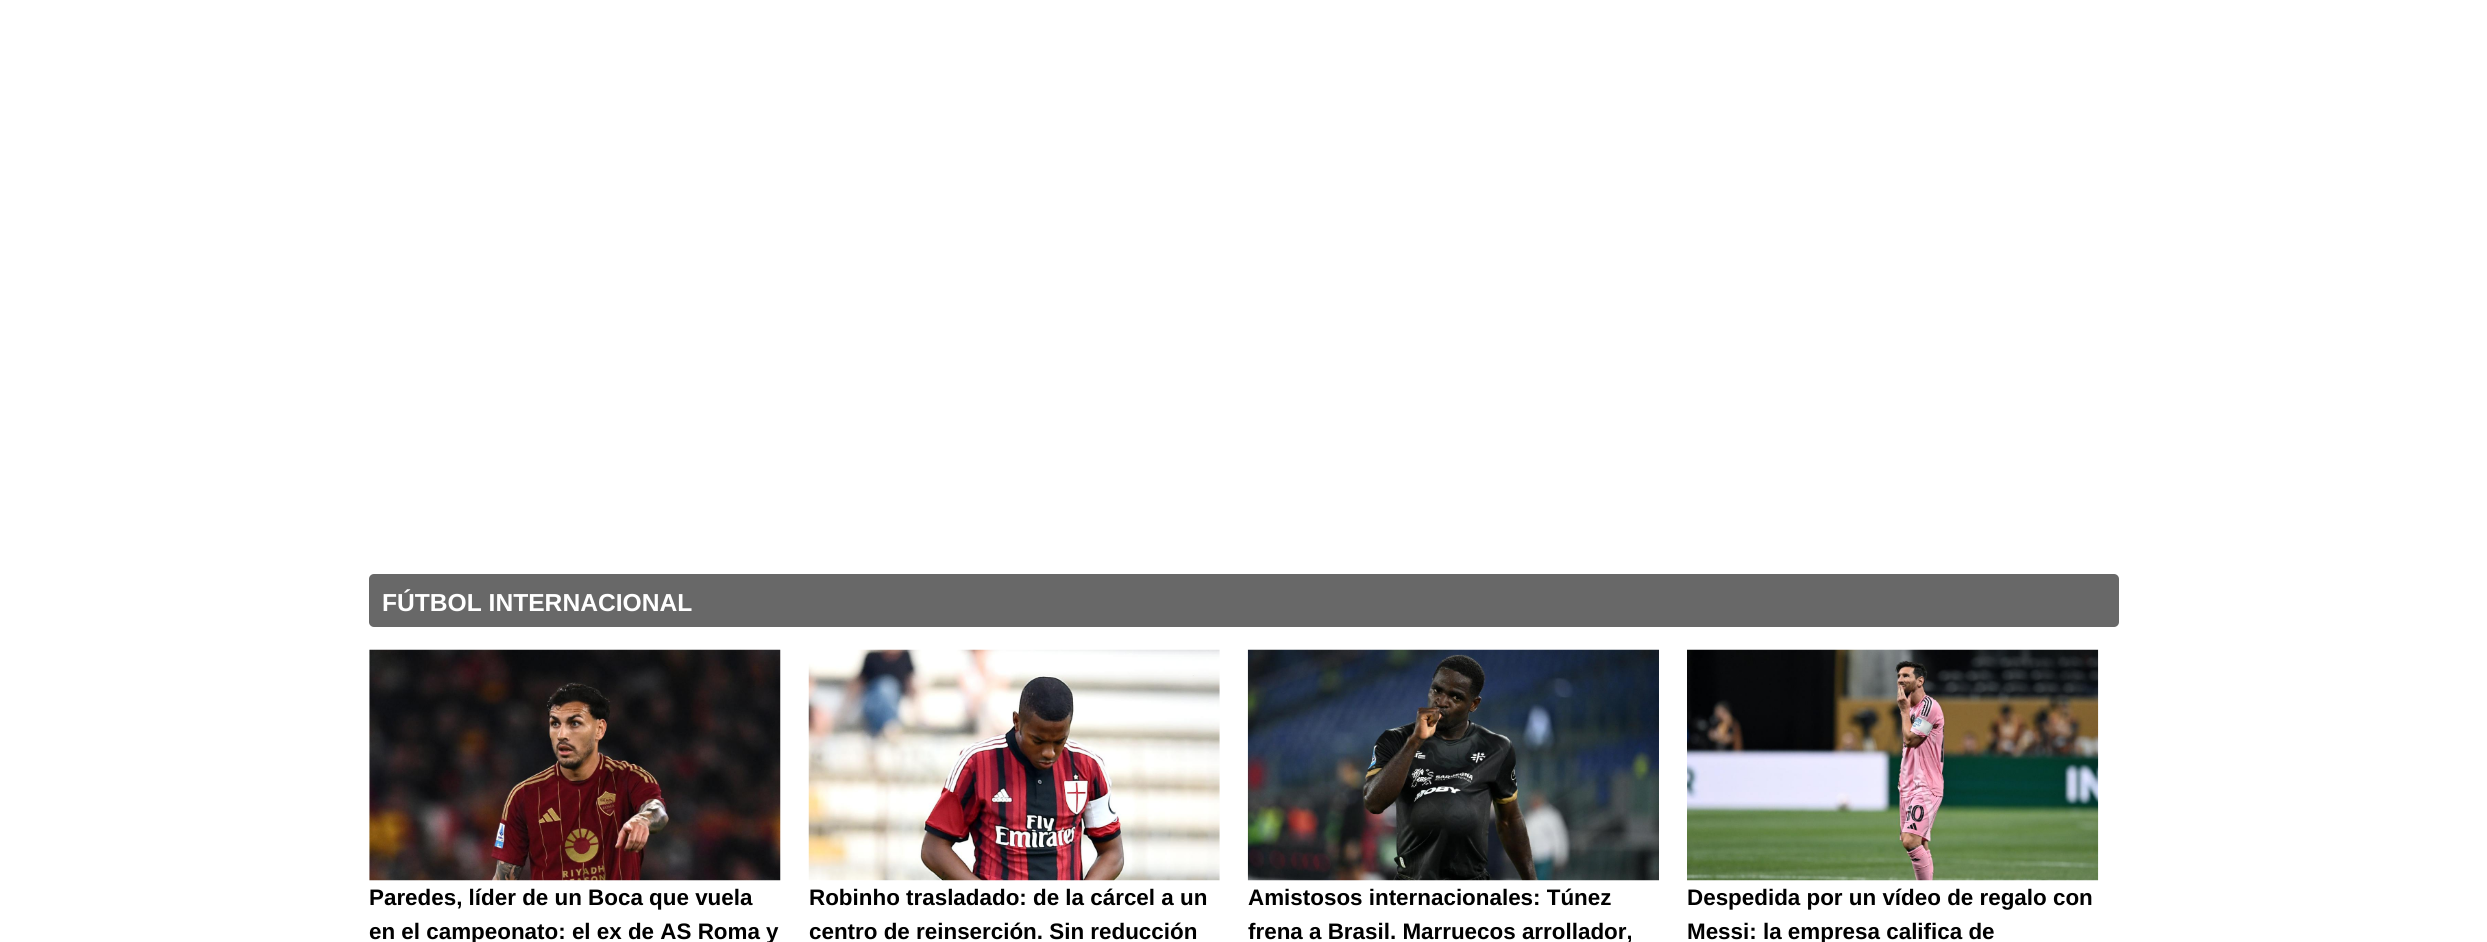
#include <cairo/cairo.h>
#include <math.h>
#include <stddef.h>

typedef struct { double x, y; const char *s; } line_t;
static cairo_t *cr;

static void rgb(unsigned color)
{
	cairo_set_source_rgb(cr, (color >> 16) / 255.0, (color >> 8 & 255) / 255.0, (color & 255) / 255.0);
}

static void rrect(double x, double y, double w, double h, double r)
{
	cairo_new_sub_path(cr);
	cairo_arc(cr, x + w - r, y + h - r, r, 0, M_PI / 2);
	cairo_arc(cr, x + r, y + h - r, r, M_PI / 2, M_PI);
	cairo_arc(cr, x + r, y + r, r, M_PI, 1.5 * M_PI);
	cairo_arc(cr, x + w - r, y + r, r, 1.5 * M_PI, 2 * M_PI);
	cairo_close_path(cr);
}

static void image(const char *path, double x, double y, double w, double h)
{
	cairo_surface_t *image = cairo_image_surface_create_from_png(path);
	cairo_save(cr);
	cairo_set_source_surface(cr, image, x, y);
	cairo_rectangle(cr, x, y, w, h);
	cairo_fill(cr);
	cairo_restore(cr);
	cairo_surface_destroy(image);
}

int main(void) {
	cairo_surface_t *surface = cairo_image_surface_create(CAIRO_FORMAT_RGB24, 2487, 942);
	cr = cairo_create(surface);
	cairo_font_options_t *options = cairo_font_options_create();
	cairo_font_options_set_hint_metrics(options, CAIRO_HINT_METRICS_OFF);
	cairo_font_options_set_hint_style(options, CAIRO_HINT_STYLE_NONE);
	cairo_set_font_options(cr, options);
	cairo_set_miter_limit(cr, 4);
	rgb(0xffffff);
	cairo_paint(cr);
	rgb(0x686868);
	rrect(369, 574, 1750, 53, 5);
	cairo_fill(cr);
	image("img/1.png", 369, 649, 412, 232);
	image("img/2.png", 808, 649, 412, 232);
	image("img/3.png", 1247, 649, 412, 232);
	image("img/4.png", 1687, 649, 412, 232);
	cairo_select_font_face(cr, "Liberation Sans", CAIRO_FONT_SLANT_NORMAL, CAIRO_FONT_WEIGHT_BOLD);
	cairo_set_font_size(cr, 24.6);
	rgb(0xffffff);
	cairo_move_to(cr, 382, 611);
	cairo_show_text(cr, "FÚTBOL INTERNACIONAL");
	cairo_set_font_size(cr, 22.4);
	rgb(0x000000);
	{
		static const line_t items[] = {
			{369, 905, "Paredes, líder de un Boca que vuela"},
			{369, 939, "en el campeonato: el ex de AS Roma y"},
			{809, 905, "Robinho trasladado: de la cárcel a un"},
			{809, 939, "centro de reinserción. Sin reducción"},
			{1248, 905, "Amistosos internacionales: Túnez"},
			{1248, 939, "frena a Brasil. Marruecos arrollador,"},
			{1687, 905, "Despedida por un vídeo de regalo con"},
			{1687, 939, "Messi: la empresa califica de"},
		};
		for (size_t i = 0; i < sizeof items / sizeof *items; i++) {
			cairo_move_to(cr, items[i].x, items[i].y);
			cairo_show_text(cr, items[i].s);
		}
	}
	cairo_surface_write_to_png(surface, "page.png");
	cairo_font_options_destroy(options);
	cairo_destroy(cr);
	cairo_surface_destroy(surface);
	return 0;
}
